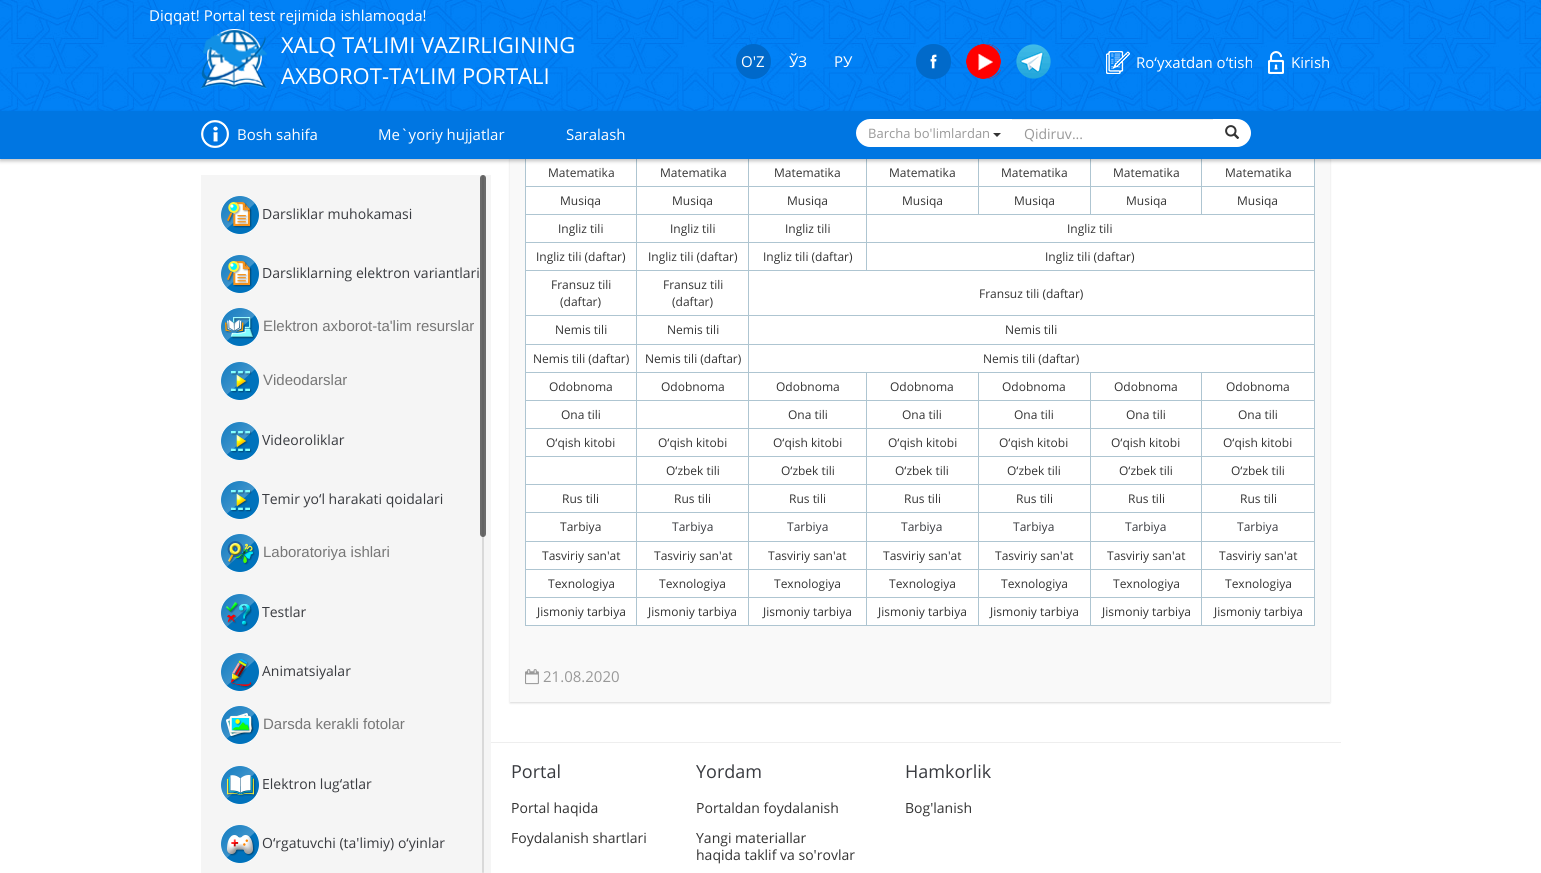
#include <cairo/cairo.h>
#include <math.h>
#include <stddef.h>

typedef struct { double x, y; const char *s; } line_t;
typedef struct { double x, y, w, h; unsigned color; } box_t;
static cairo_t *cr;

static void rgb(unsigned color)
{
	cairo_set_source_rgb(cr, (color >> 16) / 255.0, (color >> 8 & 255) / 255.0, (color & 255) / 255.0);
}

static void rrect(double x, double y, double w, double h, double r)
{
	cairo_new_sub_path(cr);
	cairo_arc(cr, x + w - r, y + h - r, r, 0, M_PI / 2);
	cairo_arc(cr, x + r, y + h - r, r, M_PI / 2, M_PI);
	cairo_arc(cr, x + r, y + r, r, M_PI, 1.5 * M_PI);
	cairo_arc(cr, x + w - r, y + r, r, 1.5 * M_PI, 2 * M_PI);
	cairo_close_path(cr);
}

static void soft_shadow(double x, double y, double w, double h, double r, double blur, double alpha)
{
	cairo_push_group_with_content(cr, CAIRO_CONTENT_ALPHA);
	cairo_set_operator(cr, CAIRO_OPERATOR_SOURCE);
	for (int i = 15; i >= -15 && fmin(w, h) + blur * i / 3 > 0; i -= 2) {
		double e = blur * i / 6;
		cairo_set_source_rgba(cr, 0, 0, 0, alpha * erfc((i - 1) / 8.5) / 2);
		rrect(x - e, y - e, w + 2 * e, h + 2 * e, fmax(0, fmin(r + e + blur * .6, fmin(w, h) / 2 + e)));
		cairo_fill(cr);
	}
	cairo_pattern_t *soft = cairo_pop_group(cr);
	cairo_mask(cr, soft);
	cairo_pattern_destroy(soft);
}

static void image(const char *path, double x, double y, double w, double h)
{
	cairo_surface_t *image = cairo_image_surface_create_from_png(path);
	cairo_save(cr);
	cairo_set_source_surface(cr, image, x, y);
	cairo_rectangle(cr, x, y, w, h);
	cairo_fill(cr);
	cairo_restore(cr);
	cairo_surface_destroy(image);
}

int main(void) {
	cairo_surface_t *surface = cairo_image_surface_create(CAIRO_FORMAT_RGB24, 1541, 873);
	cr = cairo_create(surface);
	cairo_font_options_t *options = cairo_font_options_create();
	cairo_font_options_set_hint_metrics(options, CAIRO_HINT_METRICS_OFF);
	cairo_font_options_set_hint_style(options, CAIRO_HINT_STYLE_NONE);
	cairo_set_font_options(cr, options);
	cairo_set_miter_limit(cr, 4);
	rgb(0xffffff);
	cairo_paint(cr);
	rgb(0x000000);
	soft_shadow(510, 38, 820, 665, 0, 1, 0.15);
	image("img/1.png", 0, 0, 1541, 111);
	image("img/2.png", 201, 29, 66, 60);
	rgb(0x0069ca);
	cairo_arc(cr, 753.5, 61.5, 17.5, 0, 2 * M_PI);
	cairo_fill(cr);
	image("img/3.png", 916, 44, 35, 35);
	image("img/4.png", 966, 44, 35, 35);
	image("img/5.png", 1016, 44, 35, 35);
	image("img/6.png", 1106, 51, 24, 23);
	image("img/7.png", 1268, 51, 16, 23);
	{
		static const box_t items[] = {
			{510, 159, 820, 543, 0xf9f9f9},
			{526, 159, 110, 27, 0xffffff},
			{637, 159, 111, 27, 0xffffff},
			{1201, 186, 114, 1, 0xaec5d1},
			{866, 214, 449, 1, 0xaec5d1},
			{1201, 186, 1, 29, 0xaec5d1},
			{1090, 186, 112, 1, 0xaec5d1},
			{1090, 186, 1, 29, 0xaec5d1},
			{978, 186, 113, 1, 0xaec5d1},
			{978, 186, 1, 29, 0xaec5d1},
			{866, 186, 113, 1, 0xaec5d1},
			{866, 242, 449, 1, 0xaec5d1},
			{748, 270, 567, 1, 0xaec5d1},
			{866, 242, 1, 29, 0xaec5d1},
			{748, 242, 119, 1, 0xaec5d1},
			{866, 214, 1, 29, 0xaec5d1},
			{748, 214, 119, 1, 0xaec5d1},
			{866, 186, 1, 29, 0xaec5d1},
			{748, 186, 119, 1, 0xaec5d1},
			{748, 315, 567, 1, 0xaec5d1},
			{748, 344, 567, 1, 0xaec5d1},
			{1201, 372, 114, 1, 0xaec5d1},
			{1201, 400, 114, 1, 0xaec5d1},
			{1201, 428, 114, 1, 0xaec5d1},
			{1201, 456, 114, 1, 0xaec5d1},
			{1201, 484, 114, 1, 0xaec5d1},
			{1201, 512, 114, 1, 0xaec5d1},
			{1201, 541, 114, 1, 0xaec5d1},
			{1201, 569, 114, 1, 0xaec5d1},
			{1201, 597, 114, 1, 0xaec5d1},
			{1314, 597, 1, 29, 0xaec5d1},
			{1201, 625, 114, 1, 0xaec5d1},
			{1201, 597, 1, 29, 0xaec5d1},
			{1090, 597, 112, 1, 0xaec5d1},
			{1201, 569, 1, 29, 0xaec5d1},
			{1090, 569, 112, 1, 0xaec5d1},
			{1201, 541, 1, 29, 0xaec5d1},
			{1090, 541, 112, 1, 0xaec5d1},
			{1201, 512, 1, 30, 0xaec5d1},
			{1090, 512, 112, 1, 0xaec5d1},
			{1201, 484, 1, 29, 0xaec5d1},
			{1090, 484, 112, 1, 0xaec5d1},
			{1201, 456, 1, 29, 0xaec5d1},
			{1090, 456, 112, 1, 0xaec5d1},
			{1201, 428, 1, 29, 0xaec5d1},
			{1090, 428, 112, 1, 0xaec5d1},
			{1201, 400, 1, 29, 0xaec5d1},
			{1090, 400, 112, 1, 0xaec5d1},
			{1201, 372, 1, 29, 0xaec5d1},
			{1090, 372, 112, 1, 0xaec5d1},
			{1090, 625, 112, 1, 0xaec5d1},
			{1090, 597, 1, 29, 0xaec5d1},
			{978, 597, 113, 1, 0xaec5d1},
			{1090, 569, 1, 29, 0xaec5d1},
			{978, 569, 113, 1, 0xaec5d1},
			{1090, 541, 1, 29, 0xaec5d1},
			{978, 541, 113, 1, 0xaec5d1},
			{1090, 512, 1, 30, 0xaec5d1},
			{978, 512, 113, 1, 0xaec5d1},
			{1090, 484, 1, 29, 0xaec5d1},
			{978, 484, 113, 1, 0xaec5d1},
			{1090, 456, 1, 29, 0xaec5d1},
			{978, 456, 113, 1, 0xaec5d1},
			{1090, 428, 1, 29, 0xaec5d1},
			{978, 428, 113, 1, 0xaec5d1},
			{1090, 400, 1, 29, 0xaec5d1},
			{978, 400, 113, 1, 0xaec5d1},
			{1090, 372, 1, 29, 0xaec5d1},
			{978, 372, 113, 1, 0xaec5d1},
			{978, 625, 113, 1, 0xaec5d1},
			{978, 597, 1, 29, 0xaec5d1},
			{866, 597, 113, 1, 0xaec5d1},
			{978, 569, 1, 29, 0xaec5d1},
			{866, 569, 113, 1, 0xaec5d1},
			{978, 541, 1, 29, 0xaec5d1},
			{866, 541, 113, 1, 0xaec5d1},
			{978, 512, 1, 30, 0xaec5d1},
			{866, 512, 113, 1, 0xaec5d1},
			{978, 484, 1, 29, 0xaec5d1},
			{866, 484, 113, 1, 0xaec5d1},
			{978, 456, 1, 29, 0xaec5d1},
			{866, 456, 113, 1, 0xaec5d1},
			{978, 428, 1, 29, 0xaec5d1},
			{866, 428, 113, 1, 0xaec5d1},
			{978, 400, 1, 29, 0xaec5d1},
			{866, 400, 113, 1, 0xaec5d1},
			{978, 372, 1, 29, 0xaec5d1},
			{866, 372, 113, 1, 0xaec5d1},
			{866, 625, 113, 1, 0xaec5d1},
			{866, 597, 1, 29, 0xaec5d1},
			{748, 597, 119, 1, 0xaec5d1},
			{866, 569, 1, 29, 0xaec5d1},
			{748, 569, 119, 1, 0xaec5d1},
			{866, 541, 1, 29, 0xaec5d1},
			{748, 541, 119, 1, 0xaec5d1},
			{866, 512, 1, 30, 0xaec5d1},
			{748, 512, 119, 1, 0xaec5d1},
			{866, 484, 1, 29, 0xaec5d1},
			{748, 484, 119, 1, 0xaec5d1},
			{866, 456, 1, 29, 0xaec5d1},
			{748, 456, 119, 1, 0xaec5d1},
			{866, 428, 1, 29, 0xaec5d1},
			{748, 428, 119, 1, 0xaec5d1},
			{866, 400, 1, 29, 0xaec5d1},
			{748, 400, 119, 1, 0xaec5d1},
			{866, 372, 1, 29, 0xaec5d1},
			{748, 372, 119, 1, 0xaec5d1},
			{748, 625, 119, 1, 0xaec5d1},
			{748, 597, 1, 29, 0xaec5d1},
			{636, 597, 113, 1, 0xaec5d1},
			{748, 569, 1, 29, 0xaec5d1},
			{636, 569, 113, 1, 0xaec5d1},
			{748, 541, 1, 29, 0xaec5d1},
			{636, 541, 113, 1, 0xaec5d1},
			{748, 512, 1, 30, 0xaec5d1},
			{636, 512, 113, 1, 0xaec5d1},
			{748, 484, 1, 29, 0xaec5d1},
			{636, 484, 113, 1, 0xaec5d1},
			{748, 456, 1, 29, 0xaec5d1},
			{636, 456, 113, 1, 0xaec5d1},
			{748, 428, 1, 29, 0xaec5d1},
			{636, 428, 113, 1, 0xaec5d1},
			{748, 400, 1, 29, 0xaec5d1},
			{636, 400, 113, 1, 0xaec5d1},
			{748, 372, 1, 29, 0xaec5d1},
			{636, 372, 113, 1, 0xaec5d1},
			{748, 344, 1, 29, 0xaec5d1},
			{636, 344, 113, 1, 0xaec5d1},
			{748, 315, 1, 30, 0xaec5d1},
			{636, 315, 113, 1, 0xaec5d1},
			{748, 270, 1, 46, 0xaec5d1},
			{636, 270, 113, 1, 0xaec5d1},
			{748, 242, 1, 29, 0xaec5d1},
			{636, 242, 113, 1, 0xaec5d1},
			{748, 214, 1, 29, 0xaec5d1},
			{636, 214, 113, 1, 0xaec5d1},
			{748, 186, 1, 29, 0xaec5d1},
			{636, 186, 113, 1, 0xaec5d1},
			{636, 625, 113, 1, 0xaec5d1},
			{636, 597, 1, 29, 0xaec5d1},
			{525, 597, 112, 1, 0xaec5d1},
			{636, 569, 1, 29, 0xaec5d1},
			{525, 569, 112, 1, 0xaec5d1},
			{636, 541, 1, 29, 0xaec5d1},
			{525, 541, 112, 1, 0xaec5d1},
			{636, 512, 1, 30, 0xaec5d1},
			{525, 512, 112, 1, 0xaec5d1},
			{636, 484, 1, 29, 0xaec5d1},
			{525, 484, 112, 1, 0xaec5d1},
			{636, 456, 1, 29, 0xaec5d1},
			{525, 456, 112, 1, 0xaec5d1},
			{636, 428, 1, 29, 0xaec5d1},
			{525, 428, 112, 1, 0xaec5d1},
			{636, 400, 1, 29, 0xaec5d1},
			{525, 400, 112, 1, 0xaec5d1},
			{636, 372, 1, 29, 0xaec5d1},
			{525, 372, 112, 1, 0xaec5d1},
			{636, 344, 1, 29, 0xaec5d1},
			{525, 344, 112, 1, 0xaec5d1},
			{636, 315, 1, 30, 0xaec5d1},
			{525, 315, 112, 1, 0xaec5d1},
			{636, 270, 1, 46, 0xaec5d1},
			{525, 270, 112, 1, 0xaec5d1},
			{636, 242, 1, 29, 0xaec5d1},
			{525, 242, 112, 1, 0xaec5d1},
			{636, 214, 1, 29, 0xaec5d1},
			{525, 214, 112, 1, 0xaec5d1},
			{636, 186, 1, 29, 0xaec5d1},
			{525, 186, 112, 1, 0xaec5d1},
			{636, 158, 1, 29, 0xaec5d1},
			{749, 159, 117, 27, 0xffffff},
			{748, 158, 1, 29, 0xaec5d1},
			{867, 159, 111, 27, 0xffffff},
			{866, 158, 1, 29, 0xaec5d1},
			{979, 159, 111, 27, 0xffffff},
			{978, 158, 1, 29, 0xaec5d1},
			{1091, 159, 110, 27, 0xffffff},
			{1090, 158, 1, 29, 0xaec5d1},
			{1202, 159, 112, 27, 0xffffff},
			{1201, 158, 1, 29, 0xaec5d1},
			{525, 625, 112, 1, 0xaec5d1},
			{525, 597, 1, 29, 0xaec5d1},
			{525, 569, 1, 29, 0xaec5d1},
			{525, 541, 1, 29, 0xaec5d1},
			{525, 512, 1, 30, 0xaec5d1},
			{525, 484, 1, 29, 0xaec5d1},
			{525, 456, 1, 29, 0xaec5d1},
			{525, 428, 1, 29, 0xaec5d1},
			{525, 400, 1, 29, 0xaec5d1},
			{525, 372, 1, 29, 0xaec5d1},
			{525, 344, 1, 29, 0xaec5d1},
			{525, 315, 1, 30, 0xaec5d1},
			{525, 270, 1, 46, 0xaec5d1},
			{525, 242, 1, 29, 0xaec5d1},
			{525, 214, 1, 29, 0xaec5d1},
			{525, 158, 1, 57, 0xaec5d1},
			{1314, 569, 1, 29, 0xaec5d1},
			{1314, 541, 1, 29, 0xaec5d1},
			{1314, 512, 1, 30, 0xaec5d1},
			{1314, 484, 1, 29, 0xaec5d1},
			{1314, 456, 1, 29, 0xaec5d1},
			{1314, 428, 1, 29, 0xaec5d1},
			{1314, 400, 1, 29, 0xaec5d1},
			{1314, 372, 1, 29, 0xaec5d1},
			{1314, 344, 1, 29, 0xaec5d1},
			{1314, 315, 1, 30, 0xaec5d1},
			{1314, 270, 1, 46, 0xaec5d1},
			{1314, 242, 1, 29, 0xaec5d1},
			{1314, 214, 1, 29, 0xaec5d1},
			{1314, 158, 1, 57, 0xaec5d1},
		};
		for (size_t i = 0; i < sizeof items / sizeof *items; i++) {
			rgb(items[i].color);
			cairo_rectangle(cr, items[i].x, items[i].y, items[i].w, items[i].h);
			cairo_fill(cr);
		}
	}
	rgb(0x000000);
	soft_shadow(0, 113, 1541, 48, 0, 2, 0.25);
	rgb(0x0076e2);
	cairo_rectangle(cr, 0, 111, 1541, 48);
	cairo_fill(cr);
	image("img/8.png", 201, 120, 28, 28);
	rgb(0xffffff);
	cairo_new_path(cr);
	cairo_move_to(cr, 870, 119);
	cairo_line_to(cr, 1013, 119);
	cairo_line_to(cr, 1013, 147);
	cairo_line_to(cr, 870, 147);
	cairo_curve_to(cr, 862.5, 147, 856, 140.5, 856, 133);
	cairo_curve_to(cr, 856, 125.5, 862.5, 119, 870, 119);
	cairo_close_path(cr);
	cairo_fill(cr);
	rgb(0x333333);
	cairo_new_path(cr);
	cairo_move_to(cr, 993, 133);
	cairo_line_to(cr, 1001, 133);
	cairo_line_to(cr, 997, 137);
	cairo_close_path(cr);
	cairo_fill(cr);
	rgb(0xffffff);
	cairo_rectangle(cr, 1013, 120, 200, 27);
	cairo_fill(cr);
	rgb(0xececec);
	cairo_rectangle(cr, 1012, 119, 202, 1);
	cairo_fill(cr);
	rgb(0xffffff);
	cairo_new_path(cr);
	cairo_move_to(cr, 1213, 119);
	cairo_line_to(cr, 1237, 119);
	cairo_curve_to(cr, 1244.5, 119, 1251, 125.5, 1251, 133);
	cairo_curve_to(cr, 1251, 140.5, 1244.5, 147, 1237, 147);
	cairo_line_to(cr, 1213, 147);
	cairo_close_path(cr);
	cairo_fill(cr);
	image("img/9.png", 1225, 125, 15, 14);
	rgb(0xf5f5f5);
	cairo_rectangle(cr, 201, 175, 290, 698);
	cairo_fill(cr);
	image("img/10.png", 221, 196, 38, 38);
	image("img/10.png", 221, 255, 38, 38);
	image("img/11.png", 221, 308, 38, 38);
	image("img/12.png", 221, 362, 38, 38);
	image("img/12.png", 221, 422, 38, 38);
	image("img/12.png", 221, 481, 38, 38);
	image("img/13.png", 221, 534, 38, 38);
	image("img/14.png", 221, 594, 38, 38);
	image("img/15.png", 221, 653, 38, 38);
	image("img/16.png", 221, 706, 38, 38);
	image("img/17.png", 221, 766, 38, 38);
	image("img/18.png", 221, 825, 38, 38);
	rgb(0xd9d9d9);
	rrect(482, 175, 2, 698, 1);
	cairo_fill(cr);
	cairo_set_source_rgba(cr, 0.239, 0.239, 0.239, 0.75);
	rrect(480, 175, 6, 362, 3);
	cairo_fill(cr);
	{
		static const box_t items[] = {
			{526, 187, 110, 27, 0xffffff},
			{637, 187, 111, 27, 0xffffff},
			{749, 187, 117, 27, 0xffffff},
			{867, 187, 111, 27, 0xffffff},
			{979, 187, 111, 27, 0xffffff},
			{1091, 187, 110, 27, 0xffffff},
			{1202, 187, 112, 27, 0xffffff},
			{526, 215, 110, 27, 0xffffff},
			{637, 215, 111, 27, 0xffffff},
			{749, 215, 117, 27, 0xffffff},
			{867, 215, 447, 27, 0xffffff},
			{526, 243, 110, 27, 0xffffff},
			{637, 243, 111, 27, 0xffffff},
			{749, 243, 117, 27, 0xffffff},
			{867, 243, 447, 27, 0xffffff},
			{526, 271, 110, 44, 0xffffff},
			{637, 271, 111, 44, 0xffffff},
			{749, 271, 565, 44, 0xffffff},
			{526, 316, 110, 28, 0xffffff},
			{637, 316, 111, 28, 0xffffff},
			{749, 316, 565, 28, 0xffffff},
			{526, 345, 110, 27, 0xffffff},
			{637, 345, 111, 27, 0xffffff},
			{749, 345, 565, 27, 0xffffff},
			{526, 373, 110, 27, 0xffffff},
			{637, 373, 111, 27, 0xffffff},
			{749, 373, 117, 27, 0xffffff},
			{867, 373, 111, 27, 0xffffff},
			{979, 373, 111, 27, 0xffffff},
			{1091, 373, 110, 27, 0xffffff},
			{1202, 373, 112, 27, 0xffffff},
			{526, 401, 110, 27, 0xffffff},
			{637, 401, 111, 27, 0xffffff},
			{749, 401, 117, 27, 0xffffff},
			{867, 401, 111, 27, 0xffffff},
			{979, 401, 111, 27, 0xffffff},
			{1091, 401, 110, 27, 0xffffff},
			{1202, 401, 112, 27, 0xffffff},
			{526, 429, 110, 27, 0xffffff},
			{637, 429, 111, 27, 0xffffff},
			{749, 429, 117, 27, 0xffffff},
			{867, 429, 111, 27, 0xffffff},
			{979, 429, 111, 27, 0xffffff},
			{1091, 429, 110, 27, 0xffffff},
			{1202, 429, 112, 27, 0xffffff},
			{526, 457, 110, 27, 0xffffff},
			{637, 457, 111, 27, 0xffffff},
			{749, 457, 117, 27, 0xffffff},
			{867, 457, 111, 27, 0xffffff},
			{979, 457, 111, 27, 0xffffff},
			{1091, 457, 110, 27, 0xffffff},
			{1202, 457, 112, 27, 0xffffff},
			{526, 485, 110, 27, 0xffffff},
			{637, 485, 111, 27, 0xffffff},
			{749, 485, 117, 27, 0xffffff},
			{867, 485, 111, 27, 0xffffff},
			{979, 485, 111, 27, 0xffffff},
			{1091, 485, 110, 27, 0xffffff},
			{1202, 485, 112, 27, 0xffffff},
			{526, 513, 110, 28, 0xffffff},
			{637, 513, 111, 28, 0xffffff},
			{749, 513, 117, 28, 0xffffff},
			{867, 513, 111, 28, 0xffffff},
			{979, 513, 111, 28, 0xffffff},
			{1091, 513, 110, 28, 0xffffff},
			{1202, 513, 112, 28, 0xffffff},
			{526, 542, 110, 27, 0xffffff},
			{637, 542, 111, 27, 0xffffff},
			{749, 542, 117, 27, 0xffffff},
			{867, 542, 111, 27, 0xffffff},
			{979, 542, 111, 27, 0xffffff},
			{1091, 542, 110, 27, 0xffffff},
			{1202, 542, 112, 27, 0xffffff},
			{526, 570, 110, 27, 0xffffff},
			{637, 570, 111, 27, 0xffffff},
			{749, 570, 117, 27, 0xffffff},
			{867, 570, 111, 27, 0xffffff},
			{979, 570, 111, 27, 0xffffff},
			{1091, 570, 110, 27, 0xffffff},
			{1202, 570, 112, 27, 0xffffff},
			{526, 598, 110, 27, 0xffffff},
			{637, 598, 111, 27, 0xffffff},
			{749, 598, 117, 27, 0xffffff},
			{867, 598, 111, 27, 0xffffff},
			{979, 598, 111, 27, 0xffffff},
			{1091, 598, 110, 27, 0xffffff},
			{1202, 598, 112, 27, 0xffffff},
		};
		for (size_t i = 0; i < sizeof items / sizeof *items; i++) {
			rgb(items[i].color);
			cairo_rectangle(cr, items[i].x, items[i].y, items[i].w, items[i].h);
			cairo_fill(cr);
		}
	}
	image("img/19.png", 525, 669, 14, 16);
	rgb(0xeeeeee);
	cairo_rectangle(cr, 491, 742, 850, 1);
	cairo_fill(cr);
	cairo_select_font_face(cr, "Open Sans", CAIRO_FONT_SLANT_NORMAL, CAIRO_FONT_WEIGHT_NORMAL);
	cairo_set_font_size(cr, 15);
	rgb(0xfffefe);
	cairo_move_to(cr, 149, 21);
	cairo_show_text(cr, "Diqqat! Portal test rejimida ishlamoqda!");
	cairo_set_font_size(cr, 22);
	cairo_move_to(cr, 281, 53);
	cairo_show_text(cr, "XALQ TA’LIMI VAZIRLIGINING");
	cairo_move_to(cr, 281, 84);
	cairo_show_text(cr, "AXBOROT-TA’LIM PORTALI");
	cairo_set_font_size(cr, 15);
	{
		static const line_t items[] = {
			{741, 67, "O'Z"},
			{789, 67, "ЎЗ"},
			{834, 67, "РУ"},
			{1136, 68, "Ro‘yxatdan o‘tish"},
			{1291, 68, "Kirish"},
			{237, 140, "Bosh sahifa"},
			{378, 140, "Me`yoriy hujjatlar"},
			{566, 140, "Saralash"},
		};
		for (size_t i = 0; i < sizeof items / sizeof *items; i++) {
			cairo_move_to(cr, items[i].x, items[i].y);
			cairo_show_text(cr, items[i].s);
		}
	}
	cairo_set_font_size(cr, 13);
	rgb(0x999999);
	cairo_move_to(cr, 868, 138);
	cairo_show_text(cr, "Barcha bo'limlardan");
	cairo_set_font_size(cr, 14);
	cairo_move_to(cr, 1024, 139);
	cairo_show_text(cr, "Qidiruv...");
	rgb(0x393b40);
	cairo_move_to(cr, 262, 219);
	cairo_show_text(cr, "Darsliklar muhokamasi");
	cairo_move_to(cr, 262, 278);
	cairo_show_text(cr, "Darsliklarning elektron variantlari");
	cairo_select_font_face(cr, "Liberation Sans", CAIRO_FONT_SLANT_NORMAL, CAIRO_FONT_WEIGHT_NORMAL);
	cairo_set_font_size(cr, 15);
	rgb(0x777777);
	cairo_move_to(cr, 263, 331);
	cairo_show_text(cr, "Elektron axborot-ta'lim resurslar");
	cairo_move_to(cr, 263, 385);
	cairo_show_text(cr, "Videodarslar");
	cairo_select_font_face(cr, "Open Sans", CAIRO_FONT_SLANT_NORMAL, CAIRO_FONT_WEIGHT_NORMAL);
	cairo_set_font_size(cr, 14);
	rgb(0x393b40);
	cairo_move_to(cr, 262, 445);
	cairo_show_text(cr, "Videoroliklar");
	cairo_move_to(cr, 262, 504);
	cairo_show_text(cr, "Temir yo‘l harakati qoidalari");
	cairo_select_font_face(cr, "Liberation Sans", CAIRO_FONT_SLANT_NORMAL, CAIRO_FONT_WEIGHT_NORMAL);
	cairo_set_font_size(cr, 15);
	rgb(0x777777);
	cairo_move_to(cr, 263, 557);
	cairo_show_text(cr, "Laboratoriya ishlari");
	cairo_select_font_face(cr, "Open Sans", CAIRO_FONT_SLANT_NORMAL, CAIRO_FONT_WEIGHT_NORMAL);
	cairo_set_font_size(cr, 14);
	rgb(0x393b40);
	cairo_move_to(cr, 262, 617);
	cairo_show_text(cr, "Testlar");
	cairo_move_to(cr, 262, 676);
	cairo_show_text(cr, "Animatsiyalar");
	cairo_select_font_face(cr, "Liberation Sans", CAIRO_FONT_SLANT_NORMAL, CAIRO_FONT_WEIGHT_NORMAL);
	cairo_set_font_size(cr, 15);
	rgb(0x777777);
	cairo_move_to(cr, 263, 729);
	cairo_show_text(cr, "Darsda kerakli fotolar");
	cairo_select_font_face(cr, "Open Sans", CAIRO_FONT_SLANT_NORMAL, CAIRO_FONT_WEIGHT_NORMAL);
	cairo_set_font_size(cr, 14);
	rgb(0x393b40);
	cairo_move_to(cr, 262, 789);
	cairo_show_text(cr, "Elektron lug‘atlar");
	cairo_move_to(cr, 262, 848);
	cairo_show_text(cr, "O‘rgatuvchi (ta'limiy) o‘yinlar");
	cairo_set_font_size(cr, 12);
	rgb(0x333333);
	{
		static const line_t items[] = {
			{548, 177, "Matematika"},
			{660, 177, "Matematika"},
			{774, 177, "Matematika"},
			{889, 177, "Matematika"},
			{1001, 177, "Matematika"},
			{1113, 177, "Matematika"},
			{1225, 177, "Matematika"},
			{560, 205, "Musiqa"},
			{672, 205, "Musiqa"},
			{787, 205, "Musiqa"},
			{902, 205, "Musiqa"},
			{1014, 205, "Musiqa"},
			{1126, 205, "Musiqa"},
			{1237, 205, "Musiqa"},
			{558, 233, "Ingliz tili"},
			{670, 233, "Ingliz tili"},
			{785, 233, "Ingliz tili"},
			{1067, 233, "Ingliz tili"},
			{536, 261, "Ingliz tili (daftar)"},
			{648, 261, "Ingliz tili (daftar)"},
			{763, 261, "Ingliz tili (daftar)"},
			{1045, 261, "Ingliz tili (daftar)"},
			{551, 289, "Fransuz tili"},
			{560, 306, "(daftar)"},
			{663, 289, "Fransuz tili"},
			{672, 306, "(daftar)"},
			{979, 298, "Fransuz tili (daftar)"},
			{555, 334, "Nemis tili"},
			{667, 334, "Nemis tili"},
			{1005, 334, "Nemis tili"},
			{533, 363, "Nemis tili (daftar)"},
			{645, 363, "Nemis tili (daftar)"},
			{983, 363, "Nemis tili (daftar)"},
			{549, 391, "Odobnoma"},
			{661, 391, "Odobnoma"},
			{776, 391, "Odobnoma"},
			{890, 391, "Odobnoma"},
			{1002, 391, "Odobnoma"},
			{1114, 391, "Odobnoma"},
			{1226, 391, "Odobnoma"},
			{561, 419, "Ona tili"},
			{788, 419, "Ona tili"},
			{902, 419, "Ona tili"},
			{1014, 419, "Ona tili"},
			{1126, 419, "Ona tili"},
			{1238, 419, "Ona tili"},
			{546, 447, "O‘qish kitobi"},
			{658, 447, "O‘qish kitobi"},
			{773, 447, "O‘qish kitobi"},
			{888, 447, "O‘qish kitobi"},
			{999, 447, "O‘qish kitobi"},
			{1111, 447, "O‘qish kitobi"},
			{1223, 447, "O‘qish kitobi"},
			{666, 475, "O‘zbek tili"},
			{781, 475, "O‘zbek tili"},
			{895, 475, "O‘zbek tili"},
			{1007, 475, "O‘zbek tili"},
			{1119, 475, "O‘zbek tili"},
			{1231, 475, "O‘zbek tili"},
			{562, 503, "Rus tili"},
			{674, 503, "Rus tili"},
			{789, 503, "Rus tili"},
			{904, 503, "Rus tili"},
			{1016, 503, "Rus tili"},
			{1128, 503, "Rus tili"},
			{1240, 503, "Rus tili"},
			{560, 531, "Tarbiya"},
		};
		for (size_t i = 0; i < sizeof items / sizeof *items; i++) {
			cairo_move_to(cr, items[i].x, items[i].y);
			cairo_show_text(cr, items[i].s);
		}
	}
	rgb(0x393b40);
	{
		static const line_t items[] = {
			{672, 531, "Tarbiya"},
			{787, 531, "Tarbiya"},
			{901, 531, "Tarbiya"},
			{1013, 531, "Tarbiya"},
			{1125, 531, "Tarbiya"},
			{1237, 531, "Tarbiya"},
		};
		for (size_t i = 0; i < sizeof items / sizeof *items; i++) {
			cairo_move_to(cr, items[i].x, items[i].y);
			cairo_show_text(cr, items[i].s);
		}
	}
	rgb(0x333333);
	{
		static const line_t items[] = {
			{542, 560, "Tasviriy san'at"},
			{654, 560, "Tasviriy san'at"},
			{768, 560, "Tasviriy san'at"},
			{883, 560, "Tasviriy san'at"},
			{995, 560, "Tasviriy san'at"},
			{1107, 560, "Tasviriy san'at"},
			{1219, 560, "Tasviriy san'at"},
			{548, 588, "Texnologiya"},
			{659, 588, "Texnologiya"},
			{774, 588, "Texnologiya"},
			{889, 588, "Texnologiya"},
			{1001, 588, "Texnologiya"},
			{1113, 588, "Texnologiya"},
			{1225, 588, "Texnologiya"},
			{537, 616, "Jismoniy tarbiya"},
			{648, 616, "Jismoniy tarbiya"},
			{763, 616, "Jismoniy tarbiya"},
			{878, 616, "Jismoniy tarbiya"},
			{990, 616, "Jismoniy tarbiya"},
			{1102, 616, "Jismoniy tarbiya"},
			{1214, 616, "Jismoniy tarbiya"},
		};
		for (size_t i = 0; i < sizeof items / sizeof *items; i++) {
			cairo_move_to(cr, items[i].x, items[i].y);
			cairo_show_text(cr, items[i].s);
		}
	}
	cairo_set_font_size(cr, 15);
	rgb(0x999999);
	cairo_move_to(cr, 543, 682);
	cairo_show_text(cr, "21.08.2020");
	cairo_set_font_size(cr, 18);
	rgb(0x393b40);
	cairo_move_to(cr, 511, 778);
	cairo_show_text(cr, "Portal");
	cairo_set_font_size(cr, 14);
	rgb(0x333333);
	cairo_move_to(cr, 511, 813);
	cairo_show_text(cr, "Portal haqida");
	cairo_move_to(cr, 511, 843);
	cairo_show_text(cr, "Foydalanish shartlari");
	cairo_set_font_size(cr, 18);
	rgb(0x393b40);
	cairo_move_to(cr, 696, 778);
	cairo_show_text(cr, "Yordam");
	cairo_set_font_size(cr, 14);
	rgb(0x333333);
	{
		static const line_t items[] = {
			{696, 813, "Portaldan foydalanish"},
			{696, 843, "Yangi materiallar"},
			{696, 860, "haqida taklif va so'rovlar"},
		};
		for (size_t i = 0; i < sizeof items / sizeof *items; i++) {
			cairo_move_to(cr, items[i].x, items[i].y);
			cairo_show_text(cr, items[i].s);
		}
	}
	cairo_set_font_size(cr, 18);
	rgb(0x393b40);
	cairo_move_to(cr, 905, 778);
	cairo_show_text(cr, "Hamkorlik");
	cairo_set_font_size(cr, 14);
	rgb(0x333333);
	cairo_move_to(cr, 905, 813);
	cairo_show_text(cr, "Bog'lanish");
	cairo_surface_write_to_png(surface, "page.png");
	cairo_font_options_destroy(options);
	cairo_destroy(cr);
	cairo_surface_destroy(surface);
	return 0;
}
